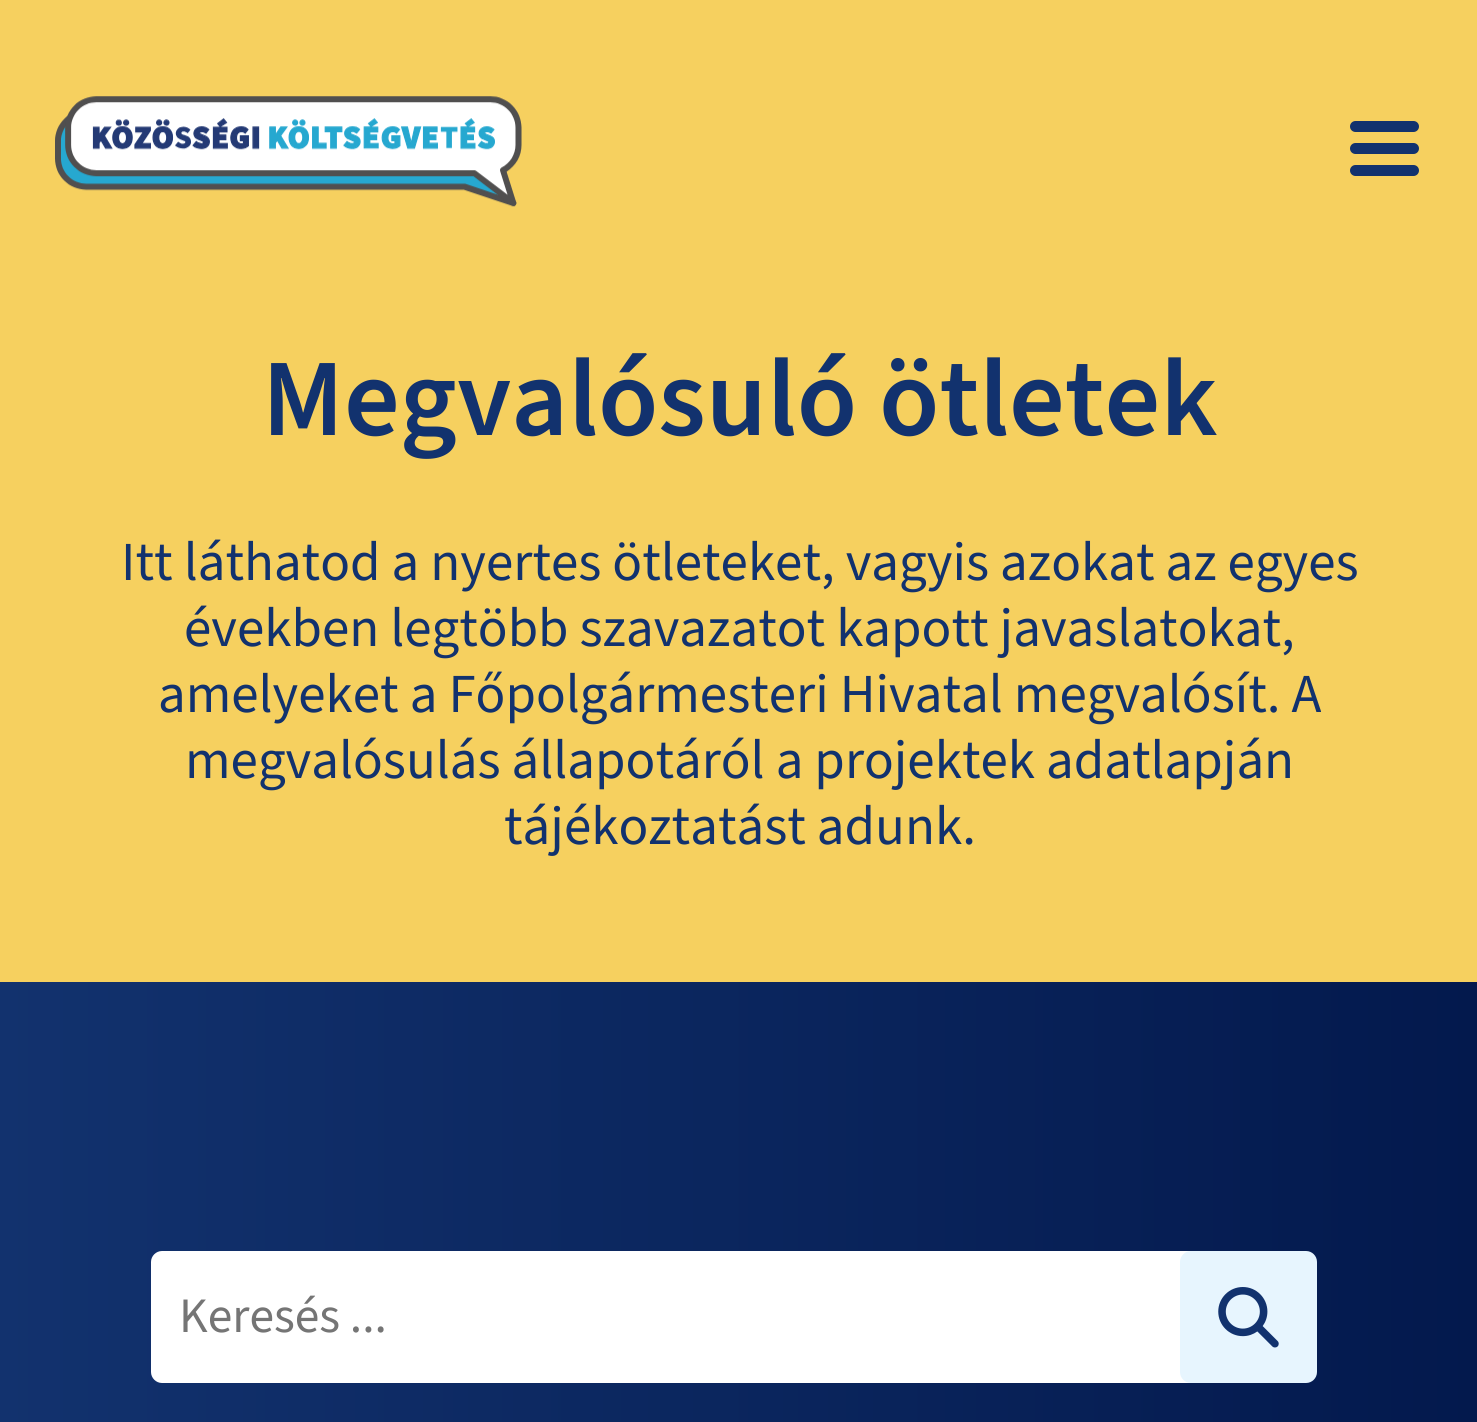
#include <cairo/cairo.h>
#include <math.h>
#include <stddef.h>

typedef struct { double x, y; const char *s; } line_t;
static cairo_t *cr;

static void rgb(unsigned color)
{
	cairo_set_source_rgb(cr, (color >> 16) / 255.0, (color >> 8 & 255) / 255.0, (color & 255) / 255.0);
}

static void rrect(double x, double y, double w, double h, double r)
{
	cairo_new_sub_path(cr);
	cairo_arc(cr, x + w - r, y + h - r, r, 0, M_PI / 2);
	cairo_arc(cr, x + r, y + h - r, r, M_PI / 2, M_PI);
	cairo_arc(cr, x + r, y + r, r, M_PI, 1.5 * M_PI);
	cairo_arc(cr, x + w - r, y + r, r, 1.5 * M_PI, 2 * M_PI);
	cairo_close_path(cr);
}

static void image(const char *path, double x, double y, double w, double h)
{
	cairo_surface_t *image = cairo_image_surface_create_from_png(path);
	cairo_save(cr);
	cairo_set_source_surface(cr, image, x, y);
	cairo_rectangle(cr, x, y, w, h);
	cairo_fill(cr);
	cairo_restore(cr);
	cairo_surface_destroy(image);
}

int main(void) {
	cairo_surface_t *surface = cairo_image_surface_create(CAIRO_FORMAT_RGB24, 1477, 1422);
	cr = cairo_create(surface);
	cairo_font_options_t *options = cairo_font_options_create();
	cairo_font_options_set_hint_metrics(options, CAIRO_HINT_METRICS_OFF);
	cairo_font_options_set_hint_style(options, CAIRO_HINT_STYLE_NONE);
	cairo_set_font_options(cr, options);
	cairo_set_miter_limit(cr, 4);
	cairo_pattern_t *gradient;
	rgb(0xf6d05f);
	cairo_paint(cr);
	image("img/1.png", 55, 96, 467, 111);
	rgb(0x12326e);
	rrect(1350, 121, 69, 11, 5.5);
	cairo_fill(cr);
	rrect(1350, 143, 69, 11, 5.5);
	cairo_fill(cr);
	rrect(1350, 165, 69, 11, 5.5);
	cairo_fill(cr);
	gradient = cairo_pattern_create_linear(0, 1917, 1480, 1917);
	cairo_pattern_add_color_stop_rgba(gradient, 0, 0.071, 0.196, 0.431, 1);
	cairo_pattern_add_color_stop_rgba(gradient, 1, 0.012, 0.098, 0.302, 1);
	cairo_set_source(cr, gradient);
	cairo_pattern_destroy(gradient);
	cairo_rectangle(cr, 0, 982, 1477, 440);
	cairo_fill(cr);
	rgb(0xffffff);
	cairo_new_path(cr);
	cairo_move_to(cr, 162, 1251);
	cairo_line_to(cr, 1191, 1251);
	cairo_line_to(cr, 1191, 1383);
	cairo_line_to(cr, 162, 1383);
	cairo_curve_to(cr, 156, 1383, 151, 1378, 151, 1372);
	cairo_line_to(cr, 151, 1262);
	cairo_curve_to(cr, 151, 1256, 156, 1251, 162, 1251);
	cairo_close_path(cr);
	cairo_fill(cr);
	rgb(0xe7f5fe);
	rrect(1180, 1251, 137, 132, 11);
	cairo_fill(cr);
	image("img/2.png", 1218, 1287, 61, 61);
	cairo_select_font_face(cr, "Source Sans 3 SemiBold", CAIRO_FONT_SLANT_NORMAL, CAIRO_FONT_WEIGHT_NORMAL);
	cairo_set_font_size(cr, 110);
	rgb(0x12326e);
	cairo_move_to(cr, 262, 435);
	cairo_show_text(cr, "Megvalósuló ötletek");
	cairo_select_font_face(cr, "Source Sans 3", CAIRO_FONT_SLANT_NORMAL, CAIRO_FONT_WEIGHT_NORMAL);
	cairo_set_font_size(cr, 55);
	{
		static const line_t items[] = {
			{121, 580, "Itt láthatod a nyertes ötleteket, vagyis azokat az egyes"},
			{184, 646, "években legtöbb szavazatot kapott javaslatokat,"},
			{158, 712, "amelyeket a Főpolgármesteri Hivatal megvalósít. A"},
			{185, 778, "megvalósulás állapotáról a projektek adatlapján"},
			{504, 844, "tájékoztatást adunk."},
		};
		for (size_t i = 0; i < sizeof items / sizeof *items; i++) {
			cairo_move_to(cr, items[i].x, items[i].y);
			cairo_show_text(cr, items[i].s);
		}
	}
	cairo_set_font_size(cr, 49.5);
	rgb(0x757575);
	cairo_move_to(cr, 179, 1332);
	cairo_show_text(cr, "Keresés ...");
	cairo_surface_write_to_png(surface, "page.png");
	cairo_font_options_destroy(options);
	cairo_destroy(cr);
	cairo_surface_destroy(surface);
	return 0;
}
